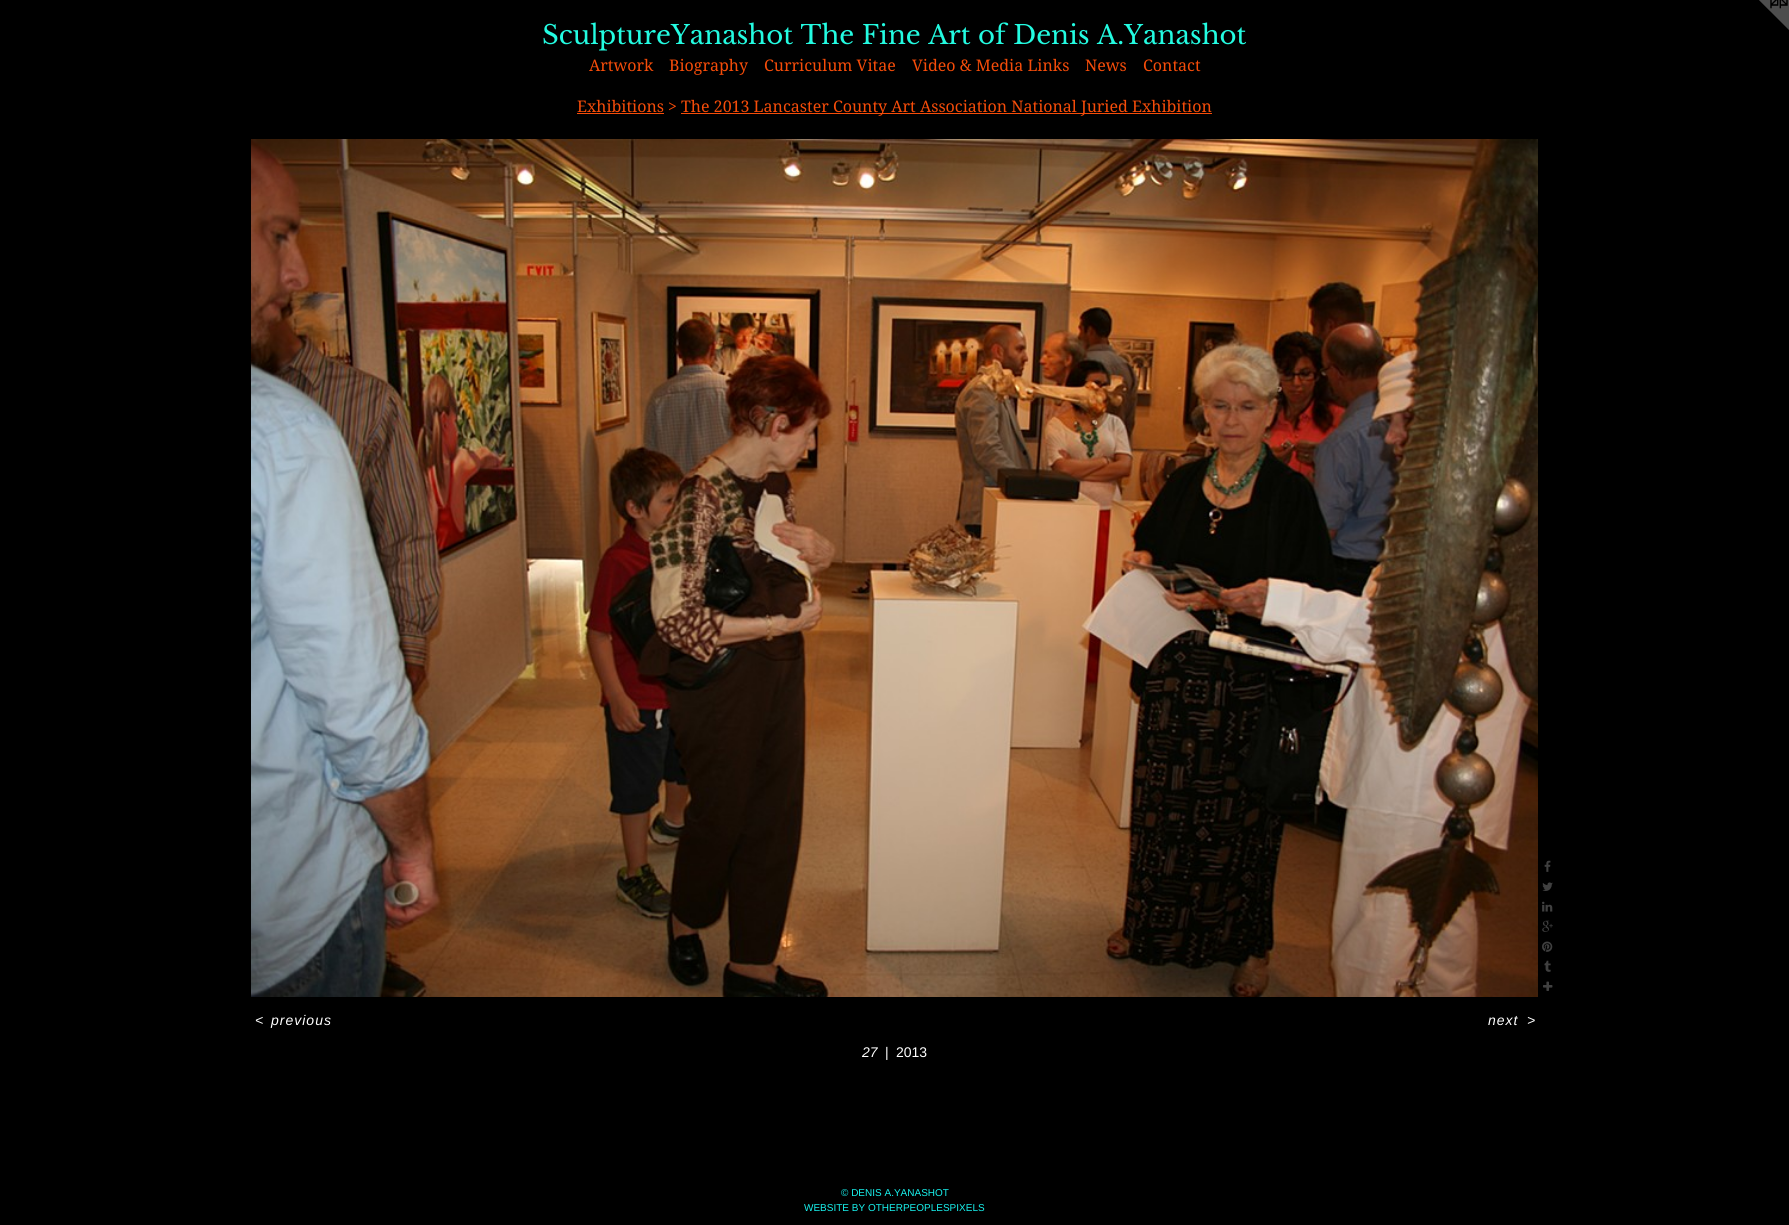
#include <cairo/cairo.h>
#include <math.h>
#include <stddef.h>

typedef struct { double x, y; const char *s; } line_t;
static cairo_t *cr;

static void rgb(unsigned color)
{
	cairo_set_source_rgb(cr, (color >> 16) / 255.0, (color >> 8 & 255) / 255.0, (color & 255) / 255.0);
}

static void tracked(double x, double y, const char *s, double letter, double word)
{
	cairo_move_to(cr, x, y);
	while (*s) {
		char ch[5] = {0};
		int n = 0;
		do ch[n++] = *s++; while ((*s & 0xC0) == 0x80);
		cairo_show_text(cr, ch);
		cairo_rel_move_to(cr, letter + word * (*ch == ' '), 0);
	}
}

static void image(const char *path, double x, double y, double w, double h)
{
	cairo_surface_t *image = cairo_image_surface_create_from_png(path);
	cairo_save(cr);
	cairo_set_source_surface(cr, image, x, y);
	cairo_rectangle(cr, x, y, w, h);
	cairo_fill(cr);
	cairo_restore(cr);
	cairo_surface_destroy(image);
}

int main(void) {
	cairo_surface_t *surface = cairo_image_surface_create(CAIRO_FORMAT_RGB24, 1789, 1225);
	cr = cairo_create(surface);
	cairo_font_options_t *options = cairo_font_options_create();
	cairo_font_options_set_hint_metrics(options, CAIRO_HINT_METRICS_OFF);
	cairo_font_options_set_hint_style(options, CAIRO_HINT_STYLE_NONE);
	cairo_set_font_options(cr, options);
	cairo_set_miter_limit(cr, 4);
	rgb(0x000000);
	cairo_paint(cr);
	image("img/1.png", 1759, 0, 30, 30);
	rgb(0xf64c09);
	cairo_rectangle(cr, 577, 113, 87, 1);
	cairo_fill(cr);
	cairo_rectangle(cr, 681, 113, 531, 1);
	cairo_fill(cr);
	image("img/2.png", 251, 139, 1287, 858);
	image("img/3.png", 1544, 860, 7, 12);
	image("img/4.png", 1542, 882, 11, 9);
	image("img/5.png", 1542, 901, 11, 11);
	image("img/6.png", 1542, 920, 11, 12);
	image("img/7.png", 1542, 941, 11, 11);
	image("img/8.png", 1544, 960, 7, 12);
	image("img/9.png", 1543, 981, 10, 10);
	cairo_select_font_face(cr, "Libre Baskerville", CAIRO_FONT_SLANT_NORMAL, CAIRO_FONT_WEIGHT_NORMAL);
	cairo_set_font_size(cr, 26);
	rgb(0x23fbe1);
	cairo_move_to(cr, 542, 44);
	cairo_show_text(cr, "SculptureYanashot The Fine Art of Denis A.Yanashot");
	cairo_select_font_face(cr, "Droid Serif", CAIRO_FONT_SLANT_NORMAL, CAIRO_FONT_WEIGHT_NORMAL);
	cairo_set_font_size(cr, 16);
	rgb(0xf64c09);
	{
		static const line_t items[] = {
			{589, 71, "Artwork"},
			{669, 71, "Biography"},
			{764, 71, "Curriculum Vitae"},
			{912, 71, "Video & Media Links"},
			{1085, 71, "News"},
			{1143, 71, "Contact"},
			{577, 112, "Exhibitions >"},
			{681, 112, "The 2013 Lancaster County Art Association National Juried Exhibition"},
		};
		for (size_t i = 0; i < sizeof items / sizeof *items; i++) {
			cairo_move_to(cr, items[i].x, items[i].y);
			cairo_show_text(cr, items[i].s);
		}
	}
	cairo_select_font_face(cr, "Liberation Sans", CAIRO_FONT_SLANT_ITALIC, CAIRO_FONT_WEIGHT_NORMAL);
	cairo_set_font_size(cr, 14);
	rgb(0xffffff);
	{
		static const line_t items[] = {
			{255, 1025, "<"},
			{271, 1025, "previous"},
			{1488, 1025, "next"},
			{1527, 1025, ">"},
		};
		for (size_t i = 0; i < sizeof items / sizeof *items; i++) {
			tracked(items[i].x, items[i].y, items[i].s, 1, 0);
		}
	}
	cairo_move_to(cr, 862, 1057);
	cairo_show_text(cr, "27");
	cairo_select_font_face(cr, "Liberation Sans", CAIRO_FONT_SLANT_NORMAL, CAIRO_FONT_WEIGHT_NORMAL);
	cairo_move_to(cr, 885, 1057);
	cairo_show_text(cr, "|");
	cairo_move_to(cr, 896, 1057);
	cairo_show_text(cr, "2013");
	cairo_set_font_size(cr, 10);
	rgb(0x18f2ee);
	cairo_move_to(cr, 841, 1196);
	cairo_show_text(cr, "© DENIS A.YANASHOT");
	cairo_move_to(cr, 804, 1211);
	cairo_show_text(cr, "WEBSITE BY OTHERPEOPLESPIXELS");
	cairo_surface_write_to_png(surface, "page.png");
	cairo_font_options_destroy(options);
	cairo_destroy(cr);
	cairo_surface_destroy(surface);
	return 0;
}
